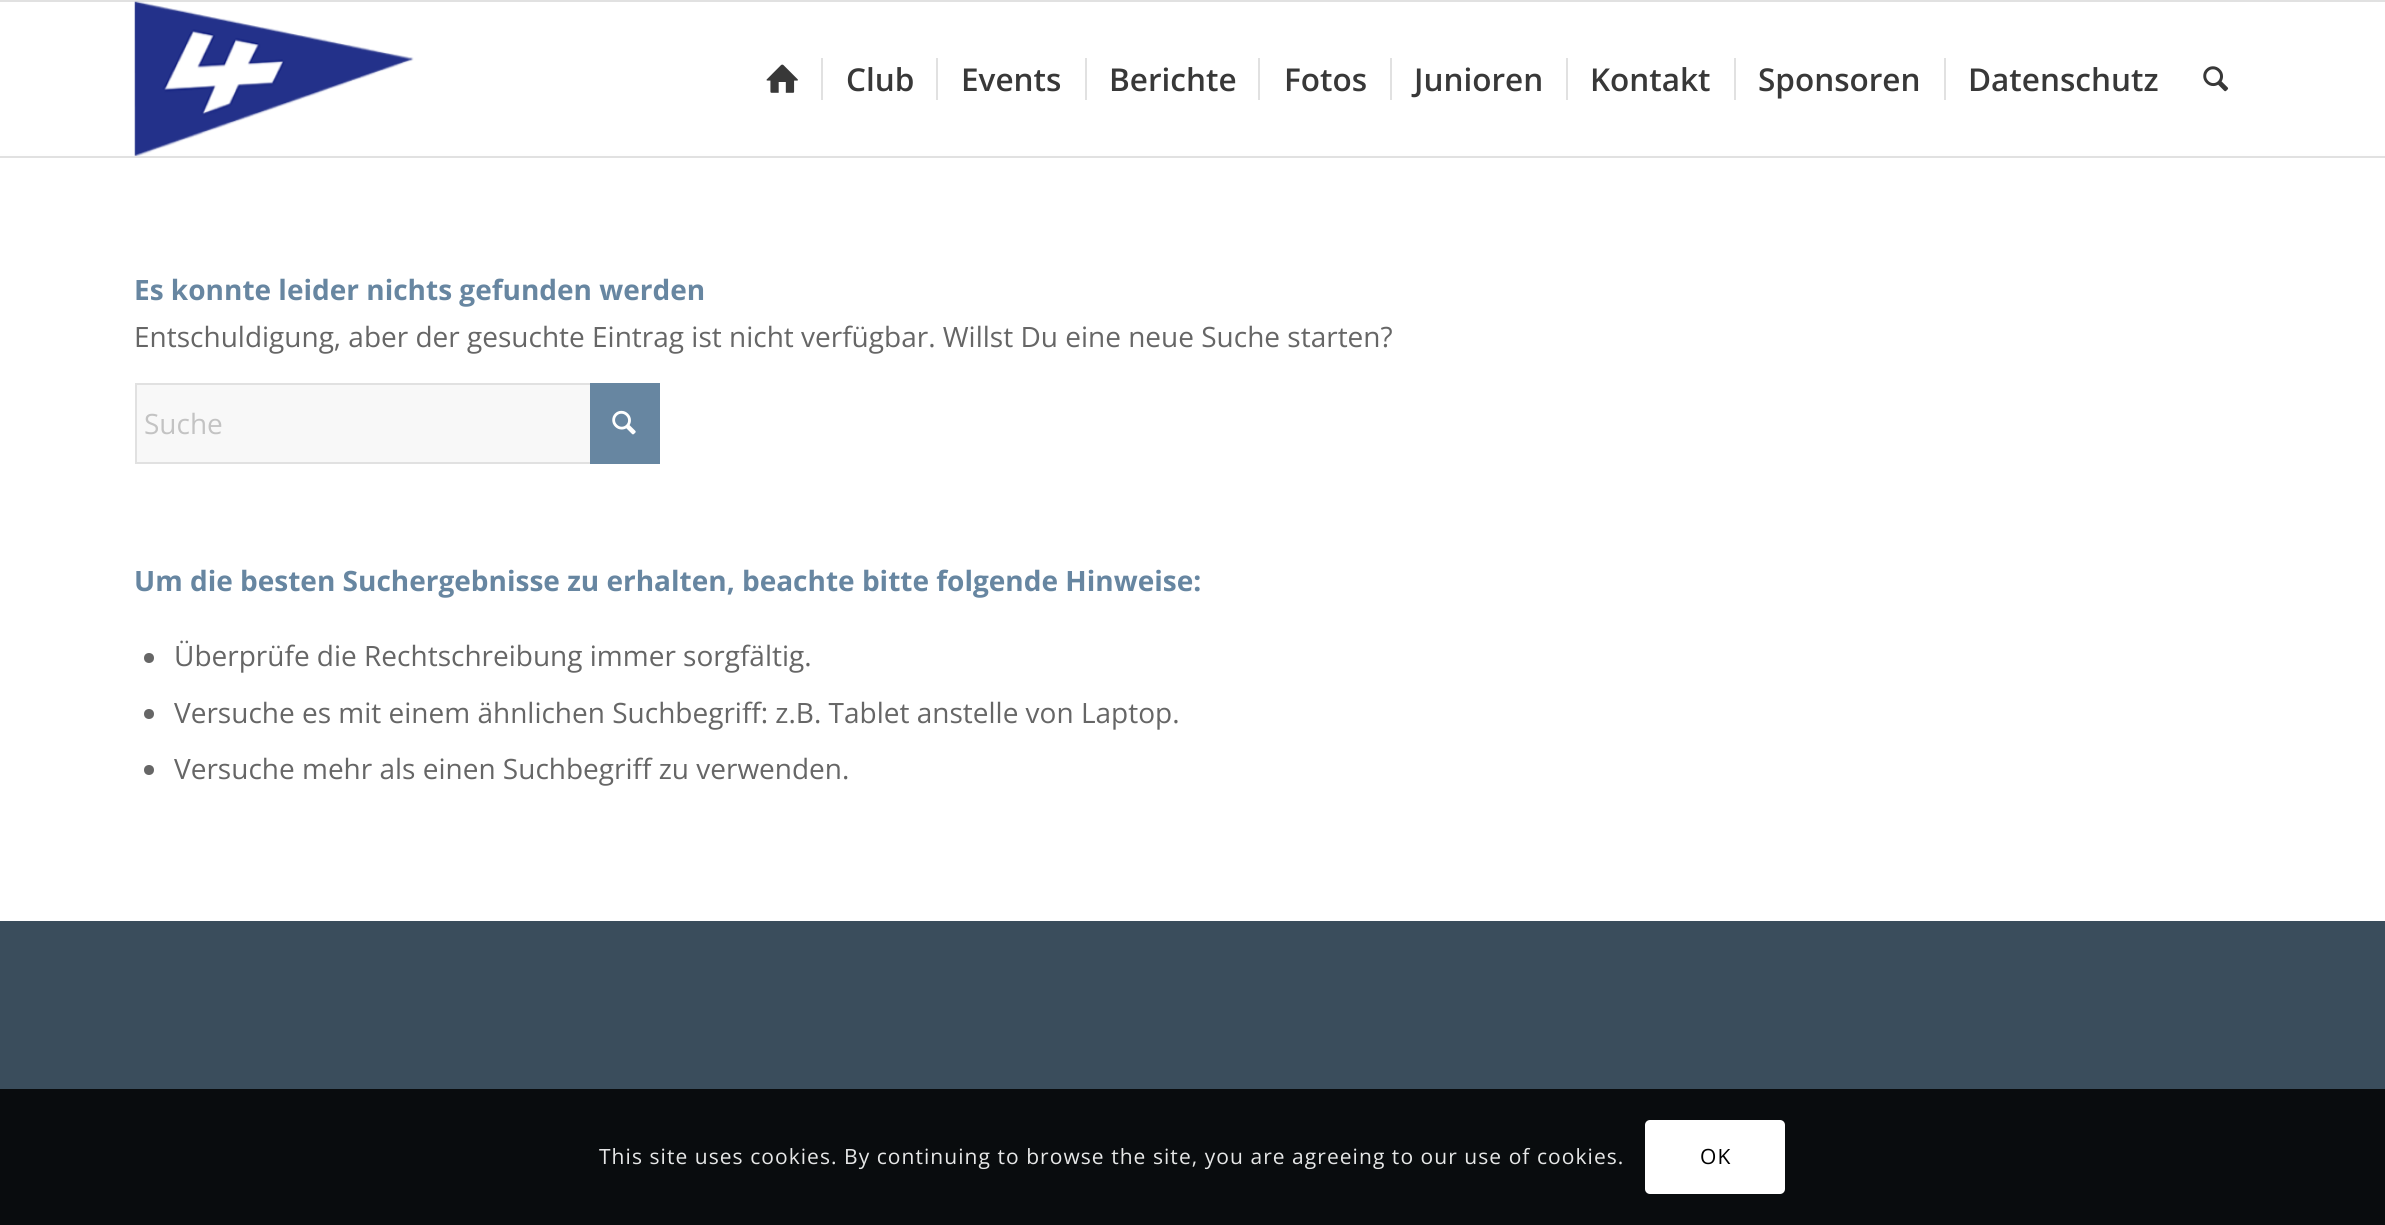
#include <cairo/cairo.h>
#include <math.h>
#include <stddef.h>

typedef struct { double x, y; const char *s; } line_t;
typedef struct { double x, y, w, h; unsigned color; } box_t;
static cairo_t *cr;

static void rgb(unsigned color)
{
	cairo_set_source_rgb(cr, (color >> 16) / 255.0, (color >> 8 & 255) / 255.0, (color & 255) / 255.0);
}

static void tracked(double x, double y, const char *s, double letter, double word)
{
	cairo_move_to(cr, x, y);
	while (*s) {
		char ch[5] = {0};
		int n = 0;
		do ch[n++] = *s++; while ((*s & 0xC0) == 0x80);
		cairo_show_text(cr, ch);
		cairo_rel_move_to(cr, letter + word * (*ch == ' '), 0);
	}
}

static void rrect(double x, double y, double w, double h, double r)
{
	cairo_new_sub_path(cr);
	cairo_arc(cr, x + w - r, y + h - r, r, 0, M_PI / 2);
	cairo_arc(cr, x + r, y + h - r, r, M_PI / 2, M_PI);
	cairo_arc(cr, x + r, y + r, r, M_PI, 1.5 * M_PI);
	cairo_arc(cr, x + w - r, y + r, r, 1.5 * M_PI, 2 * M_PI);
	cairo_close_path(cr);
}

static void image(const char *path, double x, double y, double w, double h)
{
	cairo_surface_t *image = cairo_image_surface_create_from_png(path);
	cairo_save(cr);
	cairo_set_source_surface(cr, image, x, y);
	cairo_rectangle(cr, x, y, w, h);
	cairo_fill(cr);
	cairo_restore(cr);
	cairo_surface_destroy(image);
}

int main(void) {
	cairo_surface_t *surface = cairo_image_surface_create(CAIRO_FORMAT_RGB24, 2385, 1225);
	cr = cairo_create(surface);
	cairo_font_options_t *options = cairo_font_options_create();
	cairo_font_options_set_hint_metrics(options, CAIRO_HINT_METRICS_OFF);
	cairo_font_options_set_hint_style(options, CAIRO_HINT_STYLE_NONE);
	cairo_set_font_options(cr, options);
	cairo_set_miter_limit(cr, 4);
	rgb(0x3a4d5c);
	cairo_paint(cr);
	{
		static const box_t items[] = {
			{0, 158, 2385, 763, 0xffffff},
			{0, 2, 2385, 152, 0xffffff},
			{0, 0, 2385, 2, 0xe1e1e1},
			{0, 156, 2385, 2, 0xe1e1e1},
			{0, 154, 2385, 2, 0xfefefe},
		};
		for (size_t i = 0; i < sizeof items / sizeof *items; i++) {
			rgb(items[i].color);
			cairo_rectangle(cr, items[i].x, items[i].y, items[i].w, items[i].h);
			cairo_fill(cr);
		}
	}
	image("img/1.png", 134, 1, 280, 155);
	image("img/2.png", 766, 64, 32, 29);
	{
		static const box_t items[] = {
			{821, 58, 2, 42, 0xe1e1e1},
			{936, 58, 2, 42, 0xe1e1e1},
			{1085, 58, 2, 42, 0xe1e1e1},
			{1258, 58, 2, 42, 0xe1e1e1},
			{1390, 58, 2, 42, 0xe1e1e1},
			{1566, 58, 2, 42, 0xe1e1e1},
			{1734, 58, 2, 42, 0xe1e1e1},
			{1944, 58, 2, 42, 0xe1e1e1},
		};
		for (size_t i = 0; i < sizeof items / sizeof *items; i++) {
			rgb(items[i].color);
			cairo_rectangle(cr, items[i].x, items[i].y, items[i].w, items[i].h);
			cairo_fill(cr);
		}
	}
	image("img/3.png", 2203, 66, 26, 26);
	rgb(0xf8f8f8);
	cairo_rectangle(cr, 137, 385, 453, 77);
	cairo_fill(cr);
	cairo_rectangle(cr, 136, 384, 523, 79);
	rgb(0xe1e1e1);
	cairo_stroke(cr);
	rgb(0x6786a1);
	cairo_rectangle(cr, 590, 383, 70, 81);
	cairo_fill(cr);
	image("img/4.png", 612, 410, 24, 25);
	rgb(0x666666);
	cairo_arc(cr, 149, 658, 5, 0, 2 * M_PI);
	cairo_fill(cr);
	cairo_arc(cr, 149, 714, 5, 0, 2 * M_PI);
	cairo_fill(cr);
	cairo_arc(cr, 149, 770, 5, 0, 2 * M_PI);
	cairo_fill(cr);
	rgb(0x090c0e);
	cairo_rectangle(cr, 0, 1089, 2385, 136);
	cairo_fill(cr);
	rgb(0xffffff);
	rrect(1645, 1120, 140, 74, 5);
	cairo_fill(cr);
	cairo_select_font_face(cr, "Open Sans SemiBold", CAIRO_FONT_SLANT_NORMAL, CAIRO_FONT_WEIGHT_NORMAL);
	cairo_set_font_size(cr, 31.5);
	rgb(0x383838);
	{
		static const line_t items[] = {
			{846, 91, "Club"},
			{961, 91, "Events"},
			{1109, 91, "Berichte"},
			{1284, 91, "Fotos"},
			{1414, 91, "Junioren"},
			{1590, 91, "Kontakt"},
			{1758, 91, "Sponsoren"},
			{1968, 91, "Datenschutz"},
		};
		for (size_t i = 0; i < sizeof items / sizeof *items; i++) {
			cairo_move_to(cr, items[i].x, items[i].y);
			cairo_show_text(cr, items[i].s);
		}
	}
	cairo_select_font_face(cr, "Open Sans", CAIRO_FONT_SLANT_NORMAL, CAIRO_FONT_WEIGHT_BOLD);
	cairo_set_font_size(cr, 28);
	rgb(0x6786a1);
	cairo_move_to(cr, 134, 300);
	cairo_show_text(cr, "Es konnte leider nichts gefunden werden");
	cairo_select_font_face(cr, "Open Sans", CAIRO_FONT_SLANT_NORMAL, CAIRO_FONT_WEIGHT_NORMAL);
	rgb(0x666666);
	cairo_move_to(cr, 134, 347);
	cairo_show_text(cr, "Entschuldigung, aber der gesuchte Eintrag ist nicht verfügbar. Willst Du eine neue Suche starten?");
	rgb(0xc3c3c3);
	cairo_move_to(cr, 144, 434);
	cairo_show_text(cr, "Suche");
	cairo_select_font_face(cr, "Open Sans", CAIRO_FONT_SLANT_NORMAL, CAIRO_FONT_WEIGHT_BOLD);
	rgb(0x6786a1);
	cairo_move_to(cr, 134, 591);
	cairo_show_text(cr, "Um die besten Suchergebnisse zu erhalten, beachte bitte folgende Hinweise:");
	cairo_select_font_face(cr, "Open Sans", CAIRO_FONT_SLANT_NORMAL, CAIRO_FONT_WEIGHT_NORMAL);
	rgb(0x666666);
	{
		static const line_t items[] = {
			{174, 666, "Überprüfe die Rechtschreibung immer sorgfältig."},
			{174, 723, "Versuche es mit einem ähnlichen Suchbegriff: z.B. Tablet anstelle von Laptop."},
			{174, 779, "Versuche mehr als einen Suchbegriff zu verwenden."},
		};
		for (size_t i = 0; i < sizeof items / sizeof *items; i++) {
			cairo_move_to(cr, items[i].x, items[i].y);
			cairo_show_text(cr, items[i].s);
		}
	}
	cairo_set_font_size(cr, 21);
	rgb(0xe6e7e7);
	tracked(599, 1164, "This site uses cookies. By continuing to browse the site, you are agreeing to our use of cookies.", 1.05, 0);
	rgb(0x000000);
	tracked(1700, 1164, "OK", 1.05, 0);
	cairo_surface_write_to_png(surface, "page.png");
	cairo_font_options_destroy(options);
	cairo_destroy(cr);
	cairo_surface_destroy(surface);
	return 0;
}
